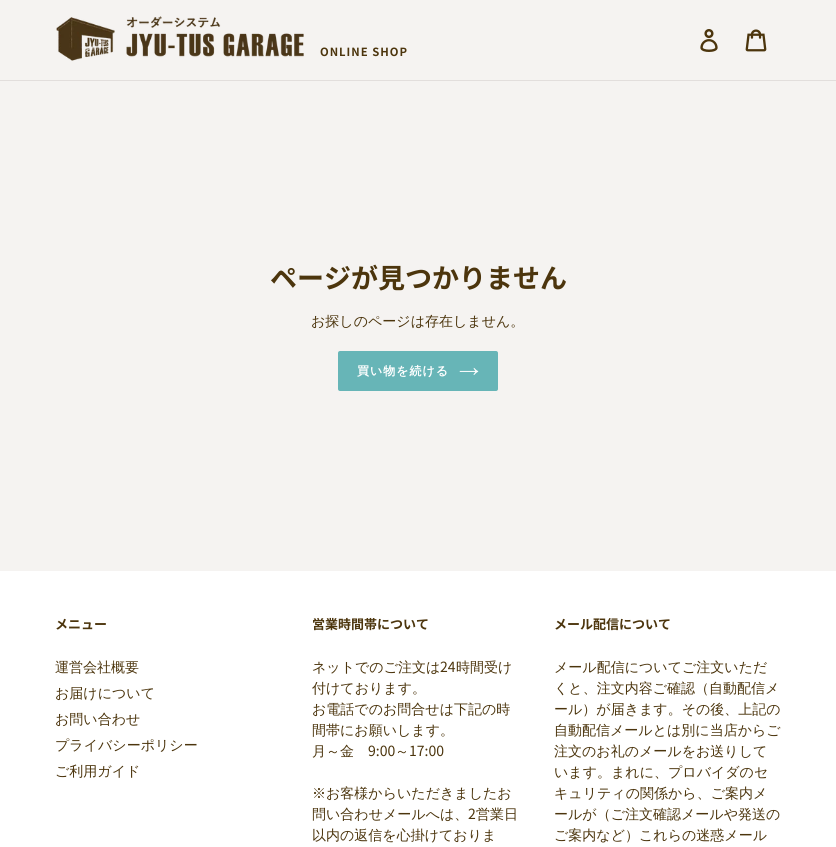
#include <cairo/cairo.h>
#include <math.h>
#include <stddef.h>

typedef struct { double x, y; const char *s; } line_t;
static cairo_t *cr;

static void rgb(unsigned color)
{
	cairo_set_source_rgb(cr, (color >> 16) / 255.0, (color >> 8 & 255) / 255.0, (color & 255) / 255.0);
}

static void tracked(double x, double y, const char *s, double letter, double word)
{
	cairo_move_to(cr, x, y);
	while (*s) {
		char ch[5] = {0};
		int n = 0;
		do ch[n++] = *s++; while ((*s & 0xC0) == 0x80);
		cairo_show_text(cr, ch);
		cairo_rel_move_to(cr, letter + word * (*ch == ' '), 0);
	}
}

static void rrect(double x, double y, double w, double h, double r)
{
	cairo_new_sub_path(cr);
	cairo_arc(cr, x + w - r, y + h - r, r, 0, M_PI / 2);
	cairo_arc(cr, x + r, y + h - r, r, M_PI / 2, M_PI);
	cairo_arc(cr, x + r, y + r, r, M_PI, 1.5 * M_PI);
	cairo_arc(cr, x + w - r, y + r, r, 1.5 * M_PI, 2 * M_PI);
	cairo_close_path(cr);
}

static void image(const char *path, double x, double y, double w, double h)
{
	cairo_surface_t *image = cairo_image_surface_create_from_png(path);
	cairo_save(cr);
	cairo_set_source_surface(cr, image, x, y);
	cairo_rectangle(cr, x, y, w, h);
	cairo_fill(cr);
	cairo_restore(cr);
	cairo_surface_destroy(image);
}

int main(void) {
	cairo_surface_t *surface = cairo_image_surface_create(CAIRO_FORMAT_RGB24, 836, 847);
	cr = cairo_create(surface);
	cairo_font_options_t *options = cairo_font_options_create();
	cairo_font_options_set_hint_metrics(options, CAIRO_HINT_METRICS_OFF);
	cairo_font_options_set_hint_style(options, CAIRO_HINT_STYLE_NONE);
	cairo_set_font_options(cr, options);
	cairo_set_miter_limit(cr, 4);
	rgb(0xf5f3f1);
	cairo_paint(cr);
	rgb(0xe2dedc);
	cairo_rectangle(cr, 0, 80, 836, 1);
	cairo_fill(cr);
	image("img/1.png", 56, 16, 248, 45);
	image("img/2.png", 700, 29, 18, 23);
	image("img/3.png", 745, 29, 22, 23);
	rgb(0x67b5b7);
	rrect(338, 351, 160, 40, 2);
	cairo_fill(cr);
	image("img/4.png", 459, 367, 20, 8);
	rgb(0xffffff);
	cairo_rectangle(cr, 0, 571, 836, 276);
	cairo_fill(cr);
	cairo_select_font_face(cr, "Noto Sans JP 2", CAIRO_FONT_SLANT_NORMAL, CAIRO_FONT_WEIGHT_BOLD);
	cairo_set_font_size(cr, 11.25);
	rgb(0x4c350d);
	tracked(320, 56, "ONLINE SHOP", 1, 0);
	cairo_select_font_face(cr, "Noto Sans JP", CAIRO_FONT_SLANT_NORMAL, CAIRO_FONT_WEIGHT_BOLD);
	cairo_set_font_size(cr, 27);
	cairo_move_to(cr, 270, 288);
	cairo_show_text(cr, "ページが見つかりません");
	cairo_select_font_face(cr, "WenQuanYi Zen Hei Medium", CAIRO_FONT_SLANT_NORMAL, CAIRO_FONT_WEIGHT_NORMAL);
	cairo_set_font_size(cr, 14);
	cairo_move_to(cr, 311, 326);
	cairo_show_text(cr, "お探しのページは存在しません。");
	cairo_select_font_face(cr, "WenQuanYi Zen Hei", CAIRO_FONT_SLANT_NORMAL, CAIRO_FONT_WEIGHT_BOLD);
	cairo_set_font_size(cr, 12);
	rgb(0xffffff);
	tracked(357, 375, "買い物を続ける", 1, 0);
	cairo_select_font_face(cr, "Noto Sans JP", CAIRO_FONT_SLANT_NORMAL, CAIRO_FONT_WEIGHT_BOLD);
	cairo_set_font_size(cr, 13);
	rgb(0x4c350d);
	cairo_move_to(cr, 55, 629);
	cairo_show_text(cr, "メニュー");
	cairo_select_font_face(cr, "WenQuanYi Zen Hei Medium", CAIRO_FONT_SLANT_NORMAL, CAIRO_FONT_WEIGHT_NORMAL);
	cairo_set_font_size(cr, 14);
	{
		static const line_t items[] = {
			{55, 672, "運営会社概要"},
			{55, 698, "お届けについて"},
			{55, 724, "お問い合わせ"},
			{55, 750, "プライバシーポリシー"},
			{55, 776, "ご利用ガイド"},
		};
		for (size_t i = 0; i < sizeof items / sizeof *items; i++) {
			cairo_move_to(cr, items[i].x, items[i].y);
			cairo_show_text(cr, items[i].s);
		}
	}
	cairo_select_font_face(cr, "Noto Sans JP", CAIRO_FONT_SLANT_NORMAL, CAIRO_FONT_WEIGHT_BOLD);
	cairo_set_font_size(cr, 13);
	cairo_move_to(cr, 312, 629);
	cairo_show_text(cr, "営業時間帯について");
	cairo_select_font_face(cr, "WenQuanYi Zen Hei Medium", CAIRO_FONT_SLANT_NORMAL, CAIRO_FONT_WEIGHT_NORMAL);
	cairo_set_font_size(cr, 14);
	cairo_move_to(cr, 312, 672);
	cairo_show_text(cr, "ネットでのご注文は");
	cairo_select_font_face(cr, "Noto Sans JP", CAIRO_FONT_SLANT_NORMAL, CAIRO_FONT_WEIGHT_NORMAL);
	cairo_move_to(cr, 440, 672);
	cairo_show_text(cr, "24");
	cairo_select_font_face(cr, "WenQuanYi Zen Hei Medium", CAIRO_FONT_SLANT_NORMAL, CAIRO_FONT_WEIGHT_NORMAL);
	{
		static const line_t items[] = {
			{456, 672, "時間受け"},
			{312, 693, "付けております。"},
			{312, 714, "お電話でのお問合せは下記の時"},
			{312, 735, "間帯にお願いします。"},
			{312, 756, "月～金"},
		};
		for (size_t i = 0; i < sizeof items / sizeof *items; i++) {
			cairo_move_to(cr, items[i].x, items[i].y);
			cairo_show_text(cr, items[i].s);
		}
	}
	cairo_select_font_face(cr, "Noto Sans JP", CAIRO_FONT_SLANT_NORMAL, CAIRO_FONT_WEIGHT_NORMAL);
	cairo_move_to(cr, 368, 756);
	cairo_show_text(cr, "9:00");
	cairo_select_font_face(cr, "WenQuanYi Zen Hei Medium", CAIRO_FONT_SLANT_NORMAL, CAIRO_FONT_WEIGHT_NORMAL);
	cairo_move_to(cr, 395, 756);
	cairo_show_text(cr, "～");
	cairo_select_font_face(cr, "Noto Sans JP", CAIRO_FONT_SLANT_NORMAL, CAIRO_FONT_WEIGHT_NORMAL);
	cairo_move_to(cr, 409, 756);
	cairo_show_text(cr, "17:00");
	cairo_select_font_face(cr, "WenQuanYi Zen Hei Medium", CAIRO_FONT_SLANT_NORMAL, CAIRO_FONT_WEIGHT_NORMAL);
	cairo_move_to(cr, 312, 798);
	cairo_show_text(cr, "※お客様からいただきましたお");
	cairo_move_to(cr, 312, 819);
	cairo_show_text(cr, "問い合わせメールへは、");
	cairo_select_font_face(cr, "Noto Sans JP", CAIRO_FONT_SLANT_NORMAL, CAIRO_FONT_WEIGHT_NORMAL);
	cairo_move_to(cr, 468, 819);
	cairo_show_text(cr, "2");
	cairo_select_font_face(cr, "WenQuanYi Zen Hei Medium", CAIRO_FONT_SLANT_NORMAL, CAIRO_FONT_WEIGHT_NORMAL);
	cairo_move_to(cr, 476, 819);
	cairo_show_text(cr, "営業日");
	cairo_move_to(cr, 312, 840);
	cairo_show_text(cr, "以内の返信を心掛けておりま");
	cairo_select_font_face(cr, "Noto Sans JP", CAIRO_FONT_SLANT_NORMAL, CAIRO_FONT_WEIGHT_BOLD);
	cairo_set_font_size(cr, 13);
	cairo_move_to(cr, 554, 629);
	cairo_show_text(cr, "メール配信について");
	cairo_select_font_face(cr, "WenQuanYi Zen Hei Medium", CAIRO_FONT_SLANT_NORMAL, CAIRO_FONT_WEIGHT_NORMAL);
	cairo_set_font_size(cr, 14);
	{
		static const line_t items[] = {
			{554, 672, "メール配信についてご注文いただ"},
			{554, 693, "くと、注文内容ご確認（自動配信メ"},
			{554, 714, "ール）が届きます。その後、上記の"},
			{554, 735, "自動配信メールとは別に当店からご"},
			{554, 756, "注文のお礼のメールをお送りして"},
			{554, 777, "います。まれに、プロバイダのセ"},
			{554, 798, "キュリティの関係から、ご案内メ"},
			{554, 819, "ールが（ご注文確認メールや発送の"},
			{554, 840, "ご案内など）これらの迷惑メール"},
		};
		for (size_t i = 0; i < sizeof items / sizeof *items; i++) {
			cairo_move_to(cr, items[i].x, items[i].y);
			cairo_show_text(cr, items[i].s);
		}
	}
	cairo_surface_write_to_png(surface, "page.png");
	cairo_font_options_destroy(options);
	cairo_destroy(cr);
	cairo_surface_destroy(surface);
	return 0;
}
